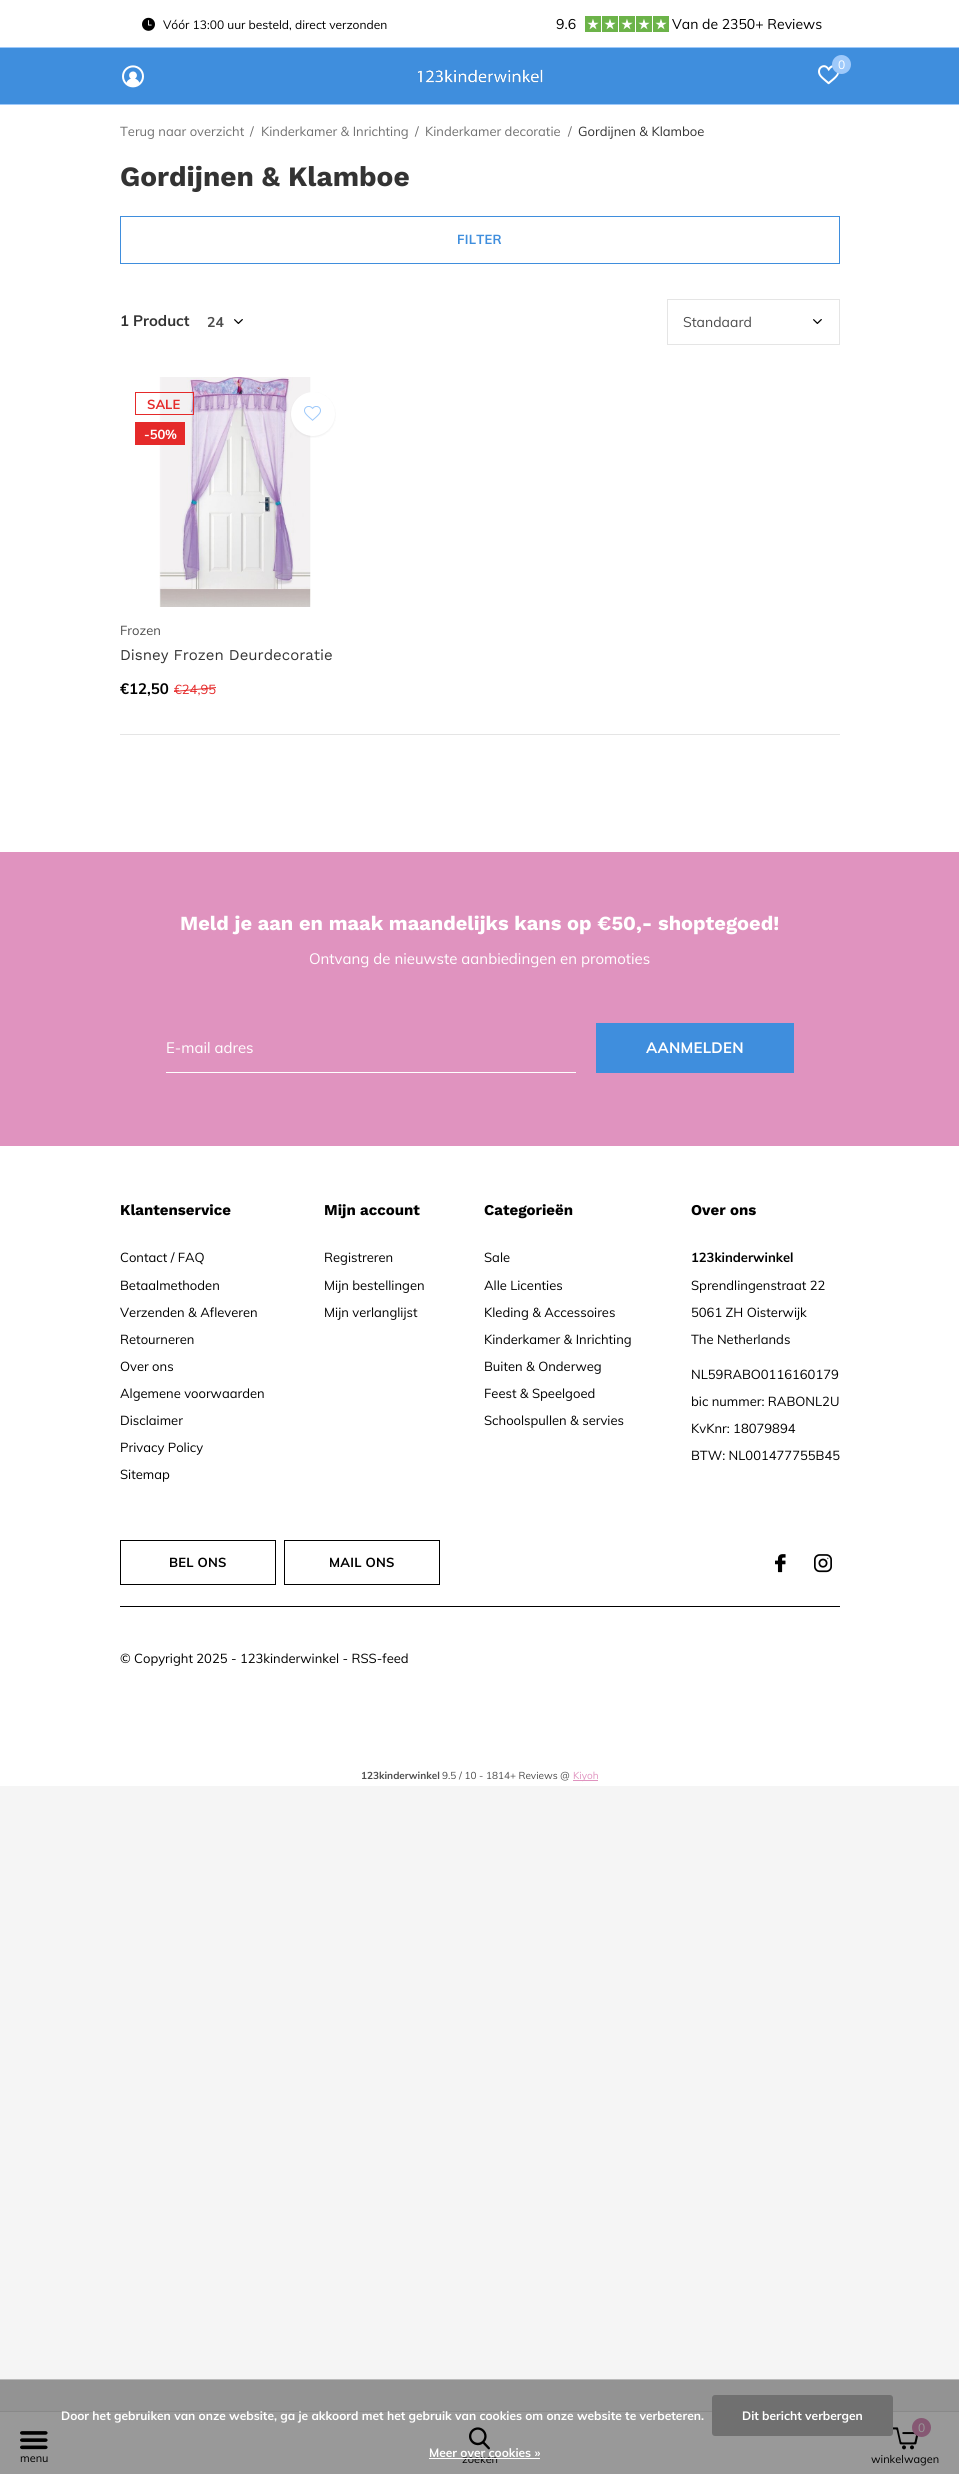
#include <cairo/cairo.h>
#include <math.h>
#include <stddef.h>

typedef struct { double x, y; const char *s; } line_t;
typedef struct { double x, y, w, h; unsigned color; } box_t;
static cairo_t *cr;

static void rgb(unsigned color)
{
	cairo_set_source_rgb(cr, (color >> 16) / 255.0, (color >> 8 & 255) / 255.0, (color & 255) / 255.0);
}

static void tracked(double x, double y, const char *s, double letter, double word)
{
	cairo_move_to(cr, x, y);
	while (*s) {
		char ch[5] = {0};
		int n = 0;
		do ch[n++] = *s++; while ((*s & 0xC0) == 0x80);
		cairo_show_text(cr, ch);
		cairo_rel_move_to(cr, letter + word * (*ch == ' '), 0);
	}
}

static void rrect(double x, double y, double w, double h, double r)
{
	cairo_new_sub_path(cr);
	cairo_arc(cr, x + w - r, y + h - r, r, 0, M_PI / 2);
	cairo_arc(cr, x + r, y + h - r, r, M_PI / 2, M_PI);
	cairo_arc(cr, x + r, y + r, r, M_PI, 1.5 * M_PI);
	cairo_arc(cr, x + w - r, y + r, r, 1.5 * M_PI, 2 * M_PI);
	cairo_close_path(cr);
}

static void soft_shadow(double x, double y, double w, double h, double r, double blur, double alpha)
{
	cairo_push_group_with_content(cr, CAIRO_CONTENT_ALPHA);
	cairo_set_operator(cr, CAIRO_OPERATOR_SOURCE);
	for (int i = 15; i >= -15 && fmin(w, h) + blur * i / 3 > 0; i -= 2) {
		double e = blur * i / 6;
		cairo_set_source_rgba(cr, 0, 0, 0, alpha * erfc((i - 1) / 8.5) / 2);
		rrect(x - e, y - e, w + 2 * e, h + 2 * e, fmax(0, fmin(r + e + blur * .6, fmin(w, h) / 2 + e)));
		cairo_fill(cr);
	}
	cairo_pattern_t *soft = cairo_pop_group(cr);
	cairo_mask(cr, soft);
	cairo_pattern_destroy(soft);
}

static void image(const char *path, double x, double y, double w, double h)
{
	cairo_surface_t *image = cairo_image_surface_create_from_png(path);
	cairo_save(cr);
	cairo_set_source_surface(cr, image, x, y);
	cairo_rectangle(cr, x, y, w, h);
	cairo_fill(cr);
	cairo_restore(cr);
	cairo_surface_destroy(image);
}

int main(void) {
	cairo_surface_t *surface = cairo_image_surface_create(CAIRO_FORMAT_RGB24, 959, 2474);
	cr = cairo_create(surface);
	cairo_font_options_t *options = cairo_font_options_create();
	cairo_font_options_set_hint_metrics(options, CAIRO_HINT_METRICS_OFF);
	cairo_font_options_set_hint_style(options, CAIRO_HINT_STYLE_NONE);
	cairo_set_font_options(cr, options);
	cairo_set_miter_limit(cr, 4);
	rgb(0xf5f5f5);
	cairo_paint(cr);
	rgb(0x939393);
	cairo_rectangle(cr, 0, 2380, 959, 31);
	cairo_fill(cr);
	rgb(0xffffff);
	cairo_rectangle(cr, 0, 0, 959, 1786);
	cairo_fill(cr);
	image("img/1.png", 142, 17, 13, 14);
	image("img/2.png", 585, 16, 16, 16);
	image("img/2.png", 602, 16, 16, 16);
	image("img/2.png", 619, 16, 16, 16);
	image("img/2.png", 636, 16, 16, 16);
	image("img/2.png", 653, 16, 16, 16);
	{
		static const box_t items[] = {
			{0, 47, 959, 1, 0x9ec9fa},
			{0, 48, 959, 56, 0x3f8edd},
			{0, 104, 959, 1, 0x9ec9fa},
		};
		for (size_t i = 0; i < sizeof items / sizeof *items; i++) {
			rgb(items[i].color);
			cairo_rectangle(cr, items[i].x, items[i].y, items[i].w, items[i].h);
			cairo_fill(cr);
		}
	}
	image("img/3.png", 122, 65, 22, 23);
	image("img/4.png", 417, 69, 126, 14);
	image("img/5.png", 818, 65, 21, 20);
	cairo_arc(cr, 841.5, 64.5, 9.5, 0, 2 * M_PI);
	cairo_fill(cr);
	cairo_rectangle(cr, 120.5, 216.5, 719, 47);
	rgb(0x3f8edd);
	cairo_set_line_width(cr, 1);
	cairo_stroke(cr);
	image("img/6.png", 234, 319, 9, 5);
	image("img/6.png", 813, 319, 9, 5);
	cairo_rectangle(cr, 667.5, 299.5, 172, 45);
	rgb(0xe5e5e5);
	cairo_stroke(cr);
	image("img/7.png", 159, 377, 152, 230);
	rgb(0x000000);
	soft_shadow(291, 393, 44, 44, 22, 1, 0.07);
	rgb(0xffffff);
	cairo_arc(cr, 313, 414, 22, 0, 2 * M_PI);
	cairo_fill(cr);
	image("img/8.png", 304, 406, 17, 15);
	cairo_rectangle(cr, 135.5, 392.5, 58, 22);
	rgb(0xe52a2a);
	cairo_stroke(cr);
	cairo_rectangle(cr, 135, 422, 50, 23);
	cairo_fill(cr);
	cairo_new_path(cr);
	cairo_move_to(cr, 174, 691);
	cairo_line_to(cr, 216, 687);
	cairo_line_to(cr, 216, 688);
	cairo_line_to(cr, 174, 692);
	cairo_close_path(cr);
	cairo_fill(cr);
	{
		static const box_t items[] = {
			{120, 734, 720, 1, 0xe5e5e5},
			{0, 852, 959, 294, 0xe093bf},
			{166, 1072, 410, 1, 0xffffff},
			{596, 1023, 198, 50, 0x3f8edd},
		};
		for (size_t i = 0; i < sizeof items / sizeof *items; i++) {
			rgb(items[i].color);
			cairo_rectangle(cr, items[i].x, items[i].y, items[i].w, items[i].h);
			cairo_fill(cr);
		}
	}
	cairo_rectangle(cr, 120.5, 1540.5, 155, 44);
	rgb(0x000000);
	cairo_stroke(cr);
	cairo_rectangle(cr, 284.5, 1540.5, 155, 44);
	cairo_stroke(cr);
	image("img/9.png", 775, 1554, 11, 19);
	image("img/10.png", 814, 1554, 18, 19);
	{
		static const box_t items[] = {
			{120, 1606, 720, 1, 0x000000},
			{573, 1780, 25, 1, 0xe093bf},
			{0, 2412, 959, 62, 0x999999},
			{0, 2411, 959, 1, 0x898989},
		};
		for (size_t i = 0; i < sizeof items / sizeof *items; i++) {
			rgb(items[i].color);
			cairo_rectangle(cr, items[i].x, items[i].y, items[i].w, items[i].h);
			cairo_fill(cr);
		}
	}
	image("img/11.png", 20, 2431, 28, 19);
	image("img/12.png", 469, 2427, 21, 23);
	image("img/13.png", 893, 2427, 25, 23);
	rgb(0x865873);
	cairo_arc(cr, 921.5, 2427.5, 9.5, 0, 2 * M_PI);
	cairo_fill(cr);
	rgb(0xbbbbbb);
	cairo_rectangle(cr, 0, 2379, 959, 1);
	cairo_fill(cr);
	rgb(0x707070);
	rrect(712, 2395, 181, 41, 3);
	cairo_fill(cr);
	cairo_select_font_face(cr, "Muli", CAIRO_FONT_SLANT_NORMAL, CAIRO_FONT_WEIGHT_NORMAL);
	cairo_set_font_size(cr, 12);
	rgb(0x000000);
	cairo_move_to(cr, 163, 29);
	cairo_show_text(cr, "Vóór 13:00 uur besteld, direct verzonden");
	cairo_set_font_size(cr, 14);
	cairo_move_to(cr, 556, 29);
	cairo_show_text(cr, "9.6");
	cairo_move_to(cr, 672, 29);
	cairo_show_text(cr, "Van de 2350+ Reviews");
	cairo_set_font_size(cr, 12);
	rgb(0xffffff);
	cairo_move_to(cr, 838, 69);
	cairo_show_text(cr, "0");
	cairo_set_font_size(cr, 13);
	rgb(0x707070);
	{
		static const line_t items[] = {
			{120, 136, "Terug naar overzicht"},
			{250, 136, "/"},
			{261, 136, "Kinderkamer & Inrichting"},
			{415, 136, "/"},
			{425, 136, "Kinderkamer decoratie"},
			{568, 136, "/"},
		};
		for (size_t i = 0; i < sizeof items / sizeof *items; i++) {
			cairo_move_to(cr, items[i].x, items[i].y);
			cairo_show_text(cr, items[i].s);
		}
	}
	rgb(0x333333);
	cairo_move_to(cr, 578, 136);
	cairo_show_text(cr, "Gordijnen & Klamboe");
	cairo_select_font_face(cr, "Work Sans", CAIRO_FONT_SLANT_NORMAL, CAIRO_FONT_WEIGHT_BOLD);
	cairo_set_font_size(cr, 28);
	cairo_move_to(cr, 120, 186);
	cairo_show_text(cr, "Gordijnen & Klamboe");
	cairo_select_font_face(cr, "Muli", CAIRO_FONT_SLANT_NORMAL, CAIRO_FONT_WEIGHT_BOLD);
	cairo_set_font_size(cr, 13);
	rgb(0x3f8edd);
	tracked(457, 244, "FILTER", 0.25, 0);
	cairo_set_font_size(cr, 15);
	rgb(0x333333);
	cairo_move_to(cr, 120, 326);
	cairo_show_text(cr, "1 Product");
	cairo_set_font_size(cr, 14);
	rgb(0x4d4d4d);
	cairo_move_to(cr, 207, 327);
	cairo_show_text(cr, "24");
	cairo_select_font_face(cr, "Muli", CAIRO_FONT_SLANT_NORMAL, CAIRO_FONT_WEIGHT_NORMAL);
	cairo_move_to(cr, 683, 327);
	cairo_show_text(cr, "Standaard");
	cairo_select_font_face(cr, "Muli", CAIRO_FONT_SLANT_NORMAL, CAIRO_FONT_WEIGHT_BOLD);
	cairo_set_font_size(cr, 13);
	rgb(0xe52a2a);
	cairo_move_to(cr, 147, 409);
	cairo_show_text(cr, "SALE");
	rgb(0xffffff);
	cairo_move_to(cr, 144, 439);
	cairo_show_text(cr, "-50%");
	cairo_select_font_face(cr, "Muli", CAIRO_FONT_SLANT_NORMAL, CAIRO_FONT_WEIGHT_NORMAL);
	rgb(0x4d4d4d);
	cairo_move_to(cr, 120, 635);
	cairo_show_text(cr, "Frozen");
	cairo_select_font_face(cr, "Work Sans", CAIRO_FONT_SLANT_NORMAL, CAIRO_FONT_WEIGHT_NORMAL);
	cairo_set_font_size(cr, 15);
	rgb(0x333333);
	cairo_move_to(cr, 120, 660);
	cairo_show_text(cr, "Disney Frozen Deurdecoratie");
	cairo_select_font_face(cr, "Muli", CAIRO_FONT_SLANT_NORMAL, CAIRO_FONT_WEIGHT_BOLD);
	rgb(0x000000);
	cairo_move_to(cr, 120, 694);
	cairo_show_text(cr, "€12,50");
	cairo_select_font_face(cr, "Muli", CAIRO_FONT_SLANT_NORMAL, CAIRO_FONT_WEIGHT_NORMAL);
	cairo_set_font_size(cr, 13);
	rgb(0xe52a2a);
	cairo_move_to(cr, 174, 694);
	cairo_show_text(cr, "€24,95");
	cairo_select_font_face(cr, "Work Sans", CAIRO_FONT_SLANT_NORMAL, CAIRO_FONT_WEIGHT_BOLD);
	cairo_set_font_size(cr, 20);
	rgb(0xffffff);
	cairo_move_to(cr, 180, 930);
	cairo_show_text(cr, "Meld je aan en maak maandelijks kans op €50,- shoptegoed!");
	cairo_select_font_face(cr, "Muli", CAIRO_FONT_SLANT_NORMAL, CAIRO_FONT_WEIGHT_NORMAL);
	cairo_set_font_size(cr, 15);
	cairo_move_to(cr, 309, 964);
	cairo_show_text(cr, "Ontvang de nieuwste aanbiedingen en promoties");
	cairo_move_to(cr, 166, 1053);
	cairo_show_text(cr, "E-mail adres");
	cairo_select_font_face(cr, "Muli", CAIRO_FONT_SLANT_NORMAL, CAIRO_FONT_WEIGHT_BOLD);
	tracked(646, 1053, "AANMELDEN", 0.25, 0);
	cairo_select_font_face(cr, "Work Sans", CAIRO_FONT_SLANT_NORMAL, CAIRO_FONT_WEIGHT_BOLD);
	rgb(0x000000);
	cairo_move_to(cr, 120, 1215);
	cairo_show_text(cr, "Klantenservice");
	cairo_select_font_face(cr, "Muli", CAIRO_FONT_SLANT_NORMAL, CAIRO_FONT_WEIGHT_NORMAL);
	cairo_set_font_size(cr, 13);
	{
		static const line_t items[] = {
			{120, 1262, "Contact / FAQ"},
			{120, 1290, "Betaalmethoden"},
			{120, 1317, "Verzenden & Afleveren"},
			{120, 1344, "Retourneren"},
			{120, 1371, "Over ons"},
			{120, 1398, "Algemene voorwaarden"},
			{120, 1425, "Disclaimer"},
			{120, 1452, "Privacy Policy"},
			{120, 1479, "Sitemap"},
		};
		for (size_t i = 0; i < sizeof items / sizeof *items; i++) {
			cairo_move_to(cr, items[i].x, items[i].y);
			cairo_show_text(cr, items[i].s);
		}
	}
	cairo_select_font_face(cr, "Work Sans", CAIRO_FONT_SLANT_NORMAL, CAIRO_FONT_WEIGHT_BOLD);
	cairo_set_font_size(cr, 15);
	cairo_move_to(cr, 324, 1215);
	cairo_show_text(cr, "Mijn account");
	cairo_select_font_face(cr, "Muli", CAIRO_FONT_SLANT_NORMAL, CAIRO_FONT_WEIGHT_NORMAL);
	cairo_set_font_size(cr, 13);
	{
		static const line_t items[] = {
			{324, 1262, "Registreren"},
			{324, 1290, "Mijn bestellingen"},
			{324, 1317, "Mijn verlanglijst"},
		};
		for (size_t i = 0; i < sizeof items / sizeof *items; i++) {
			cairo_move_to(cr, items[i].x, items[i].y);
			cairo_show_text(cr, items[i].s);
		}
	}
	cairo_select_font_face(cr, "Work Sans", CAIRO_FONT_SLANT_NORMAL, CAIRO_FONT_WEIGHT_BOLD);
	cairo_set_font_size(cr, 15);
	cairo_move_to(cr, 484, 1215);
	cairo_show_text(cr, "Categorieën");
	cairo_select_font_face(cr, "Muli", CAIRO_FONT_SLANT_NORMAL, CAIRO_FONT_WEIGHT_NORMAL);
	cairo_set_font_size(cr, 13);
	{
		static const line_t items[] = {
			{484, 1262, "Sale"},
			{484, 1290, "Alle Licenties"},
			{484, 1317, "Kleding & Accessoires"},
			{484, 1344, "Kinderkamer & Inrichting"},
			{484, 1371, "Buiten & Onderweg"},
			{484, 1398, "Feest & Speelgoed"},
			{484, 1425, "Schoolspullen & servies"},
		};
		for (size_t i = 0; i < sizeof items / sizeof *items; i++) {
			cairo_move_to(cr, items[i].x, items[i].y);
			cairo_show_text(cr, items[i].s);
		}
	}
	cairo_select_font_face(cr, "Work Sans", CAIRO_FONT_SLANT_NORMAL, CAIRO_FONT_WEIGHT_BOLD);
	cairo_set_font_size(cr, 15);
	cairo_move_to(cr, 691, 1215);
	cairo_show_text(cr, "Over ons");
	cairo_select_font_face(cr, "Muli", CAIRO_FONT_SLANT_NORMAL, CAIRO_FONT_WEIGHT_BOLD);
	cairo_set_font_size(cr, 13);
	cairo_move_to(cr, 691, 1262);
	cairo_show_text(cr, "123kinderwinkel");
	cairo_select_font_face(cr, "Muli", CAIRO_FONT_SLANT_NORMAL, CAIRO_FONT_WEIGHT_NORMAL);
	{
		static const line_t items[] = {
			{691, 1290, "Sprendlingenstraat 22"},
			{691, 1317, "5061 ZH Oisterwijk"},
			{691, 1344, "The Netherlands"},
			{691, 1379, "NL59RABO0116160179"},
			{691, 1406, "bic nummer: RABONL2U"},
			{691, 1433, "KvKnr: 18079894"},
			{691, 1460, "BTW: NL001477755B45"},
		};
		for (size_t i = 0; i < sizeof items / sizeof *items; i++) {
			cairo_move_to(cr, items[i].x, items[i].y);
			cairo_show_text(cr, items[i].s);
		}
	}
	cairo_select_font_face(cr, "Muli", CAIRO_FONT_SLANT_NORMAL, CAIRO_FONT_WEIGHT_BOLD);
	tracked(169, 1567, "BEL ONS", 0.25, 0);
	tracked(329, 1567, "MAIL ONS", 0.25, 0);
	cairo_select_font_face(cr, "Muli", CAIRO_FONT_SLANT_NORMAL, CAIRO_FONT_WEIGHT_NORMAL);
	cairo_move_to(cr, 120, 1663);
	cairo_show_text(cr, "© Copyright 2025 - 123kinderwinkel - RSS-feed");
	cairo_select_font_face(cr, "Muli", CAIRO_FONT_SLANT_NORMAL, CAIRO_FONT_WEIGHT_BOLD);
	cairo_set_font_size(cr, 10);
	rgb(0x4d4d4d);
	cairo_move_to(cr, 361, 1779);
	cairo_show_text(cr, "123kinderwinkel");
	cairo_select_font_face(cr, "Muli", CAIRO_FONT_SLANT_NORMAL, CAIRO_FONT_WEIGHT_NORMAL);
	cairo_move_to(cr, 442, 1779);
	cairo_show_text(cr, "9.5 / 10 - 1814+ Reviews @");
	rgb(0xe093bf);
	cairo_move_to(cr, 573, 1779);
	cairo_show_text(cr, "Kiyoh");
	cairo_set_font_size(cr, 11);
	rgb(0x000000);
	cairo_move_to(cr, 20, 2462);
	cairo_show_text(cr, "menu");
	cairo_move_to(cr, 462, 2463);
	cairo_show_text(cr, "zoeken");
	cairo_set_font_size(cr, 12);
	rgb(0x999999);
	cairo_move_to(cr, 918, 2432);
	cairo_show_text(cr, "0");
	cairo_set_font_size(cr, 11);
	rgb(0x000000);
	cairo_move_to(cr, 871, 2463);
	cairo_show_text(cr, "winkelwagen");
	cairo_select_font_face(cr, "Muli", CAIRO_FONT_SLANT_NORMAL, CAIRO_FONT_WEIGHT_BOLD);
	cairo_set_font_size(cr, 12);
	rgb(0xffffff);
	{
		static const line_t items[] = {
			{61, 2420, "Door het gebruiken van onze website, ga je akkoord met het gebruik van cookies om onze website te verbeteren."},
			{742, 2420, "Dit bericht verbergen"},
			{429, 2457, "Meer over cookies »"},
		};
		for (size_t i = 0; i < sizeof items / sizeof *items; i++) {
			cairo_move_to(cr, items[i].x, items[i].y);
			cairo_show_text(cr, items[i].s);
		}
	}
	cairo_rectangle(cr, 429, 2458, 111, 1);
	cairo_fill(cr);
	cairo_surface_write_to_png(surface, "page.png");
	cairo_font_options_destroy(options);
	cairo_destroy(cr);
	cairo_surface_destroy(surface);
	return 0;
}
